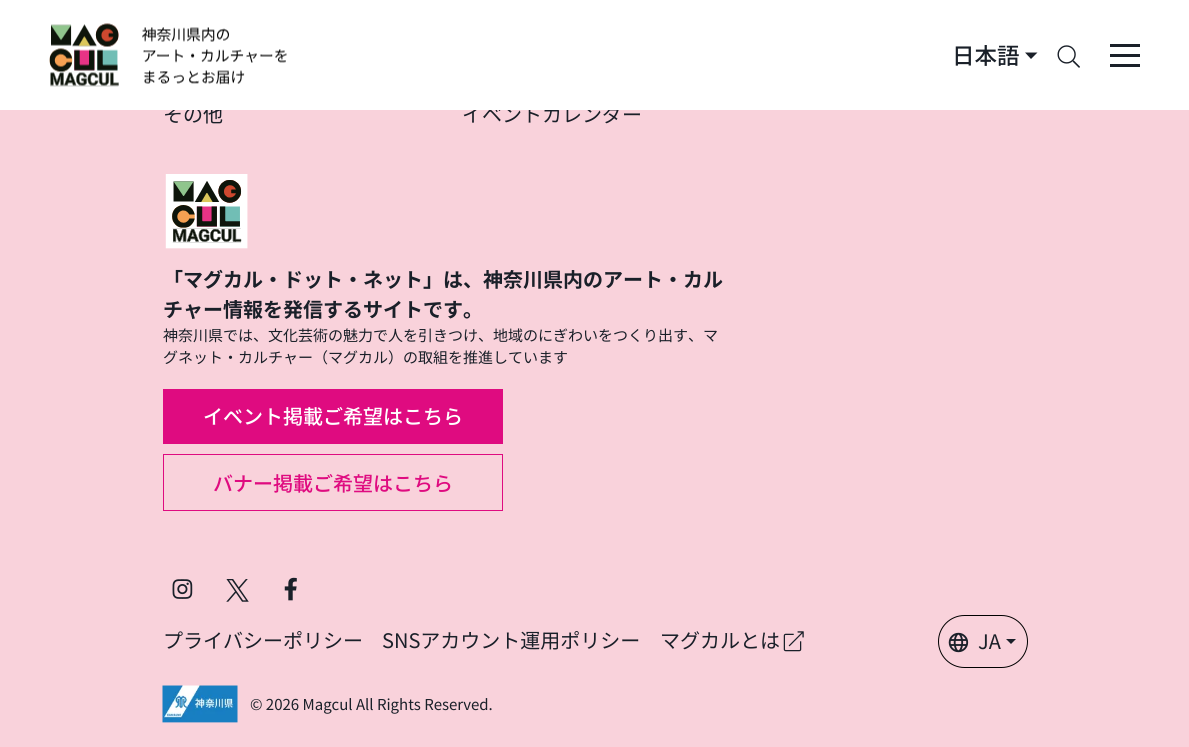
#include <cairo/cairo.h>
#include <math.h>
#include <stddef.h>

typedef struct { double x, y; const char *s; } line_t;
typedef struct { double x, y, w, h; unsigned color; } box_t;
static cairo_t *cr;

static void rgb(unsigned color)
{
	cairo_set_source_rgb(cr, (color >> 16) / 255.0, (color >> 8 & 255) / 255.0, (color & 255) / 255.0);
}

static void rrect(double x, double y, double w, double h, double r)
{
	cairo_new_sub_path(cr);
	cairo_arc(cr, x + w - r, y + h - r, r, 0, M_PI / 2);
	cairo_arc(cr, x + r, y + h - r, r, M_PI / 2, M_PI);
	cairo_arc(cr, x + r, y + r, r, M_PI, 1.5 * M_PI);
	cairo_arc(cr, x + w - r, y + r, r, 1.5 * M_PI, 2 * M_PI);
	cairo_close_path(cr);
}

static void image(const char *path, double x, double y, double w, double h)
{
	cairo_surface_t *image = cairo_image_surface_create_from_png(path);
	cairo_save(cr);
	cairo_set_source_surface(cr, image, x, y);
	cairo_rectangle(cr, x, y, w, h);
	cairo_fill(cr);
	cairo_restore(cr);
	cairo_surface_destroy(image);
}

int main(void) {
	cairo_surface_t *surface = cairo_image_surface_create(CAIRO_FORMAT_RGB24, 1189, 747);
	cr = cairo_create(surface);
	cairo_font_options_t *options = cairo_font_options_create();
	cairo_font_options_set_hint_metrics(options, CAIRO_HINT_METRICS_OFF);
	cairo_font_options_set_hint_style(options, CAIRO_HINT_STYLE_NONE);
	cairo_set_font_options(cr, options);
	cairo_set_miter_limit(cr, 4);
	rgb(0xf9d2db);
	cairo_paint(cr);
	image("img/3.png", 165, 174, 83, 75);
	rgb(0xdf0b80);
	cairo_rectangle(cr, 163, 389, 340, 55);
	cairo_fill(cr);
	cairo_rectangle(cr, 163.5, 454.5, 339, 56);
	cairo_set_line_width(cr, 1);
	cairo_stroke(cr);
	image("img/4.png", 172, 579, 21, 20);
	image("img/5.png", 226, 579, 23, 23);
	image("img/6.png", 284, 577, 13, 24);
	image("img/7.png", 783, 631, 21, 21);
	rrect(938.5, 615.5, 89, 52, 26);
	rgb(0x000000);
	cairo_stroke(cr);
	image("img/8.png", 948, 632, 21, 21);
	rgb(0x1a2029);
	cairo_new_path(cr);
	cairo_move_to(cr, 1006, 639);
	cairo_line_to(cr, 1016, 639);
	cairo_line_to(cr, 1011, 644);
	cairo_close_path(cr);
	cairo_fill(cr);
	image("img/9.png", 162, 685, 76, 38);
	cairo_select_font_face(cr, "Noto Sans JP", CAIRO_FONT_SLANT_NORMAL, CAIRO_FONT_WEIGHT_NORMAL);
	cairo_set_font_size(cr, 20);
	cairo_move_to(cr, 163, 122);
	cairo_show_text(cr, "その他");
	cairo_move_to(cr, 462, 122);
	cairo_show_text(cr, "イベントカレンダー");
	{
		static const box_t items[] = {
			{0, 0, 1189, 110, 0xffffff},
			{1110, 64, 30, 3, 0x1a2029},
			{1110, 44, 30, 3, 0x1a2029},
			{1110, 54, 30, 3, 0x1a2029},
		};
		for (size_t i = 0; i < sizeof items / sizeof *items; i++) {
			rgb(items[i].color);
			cairo_rectangle(cr, items[i].x, items[i].y, items[i].w, items[i].h);
			cairo_fill(cr);
		}
	}
	cairo_new_path(cr);
	cairo_move_to(cr, 1025, 52.5);
	cairo_line_to(cr, 1037.5, 52.5);
	cairo_line_to(cr, 1031, 59);
	cairo_close_path(cr);
	cairo_fill(cr);
	cairo_select_font_face(cr, "Noto Sans JP Medium", CAIRO_FONT_SLANT_NORMAL, CAIRO_FONT_WEIGHT_NORMAL);
	cairo_set_font_size(cr, 22.5);
	cairo_move_to(cr, 952, 64);
	cairo_show_text(cr, "日本語");
	image("img/1.png", 49, 23, 238, 64);
	image("img/2.png", 1057, 45, 23, 23);
	cairo_select_font_face(cr, "Noto Sans JP", CAIRO_FONT_SLANT_NORMAL, CAIRO_FONT_WEIGHT_BOLD);
	cairo_set_font_size(cr, 20);
	cairo_move_to(cr, 163, 287);
	cairo_show_text(cr, "「マグカル・ドット・ネット」は、神奈川県内のアート・カル");
	cairo_move_to(cr, 163, 317);
	cairo_show_text(cr, "チャー情報を発信するサイトです。");
	cairo_select_font_face(cr, "Noto Sans JP", CAIRO_FONT_SLANT_NORMAL, CAIRO_FONT_WEIGHT_NORMAL);
	cairo_set_font_size(cr, 15);
	cairo_move_to(cr, 163, 341);
	cairo_show_text(cr, "神奈川県では、文化芸術の魅力で人を引きつけ、地域のにぎわいをつくり出す、マ");
	cairo_move_to(cr, 163, 363);
	cairo_show_text(cr, "グネット・カルチャー（マグカル）の取組を推進しています");
	cairo_select_font_face(cr, "Noto Sans JP Medium", CAIRO_FONT_SLANT_NORMAL, CAIRO_FONT_WEIGHT_NORMAL);
	cairo_set_font_size(cr, 20);
	rgb(0xffffff);
	cairo_move_to(cr, 203, 424);
	cairo_show_text(cr, "イベント掲載ご希望はこちら");
	rgb(0xdf0b80);
	cairo_move_to(cr, 213, 491);
	cairo_show_text(cr, "バナー掲載ご希望はこちら");
	cairo_select_font_face(cr, "Noto Sans JP", CAIRO_FONT_SLANT_NORMAL, CAIRO_FONT_WEIGHT_NORMAL);
	rgb(0x1a2029);
	{
		static const line_t items[] = {
			{163, 648, "プライバシーポリシー"},
			{382, 648, "SNSアカウント運用ポリシー"},
			{660, 648, "マグカルとは"},
			{978, 649, "JA"},
		};
		for (size_t i = 0; i < sizeof items / sizeof *items; i++) {
			cairo_move_to(cr, items[i].x, items[i].y);
			cairo_show_text(cr, items[i].s);
		}
	}
	cairo_set_font_size(cr, 15);
	cairo_move_to(cr, 250, 710);
	cairo_show_text(cr, "© 2026 Magcul All Rights Reserved.");
	cairo_surface_write_to_png(surface, "page.png");
	cairo_font_options_destroy(options);
	cairo_destroy(cr);
	cairo_surface_destroy(surface);
	return 0;
}
